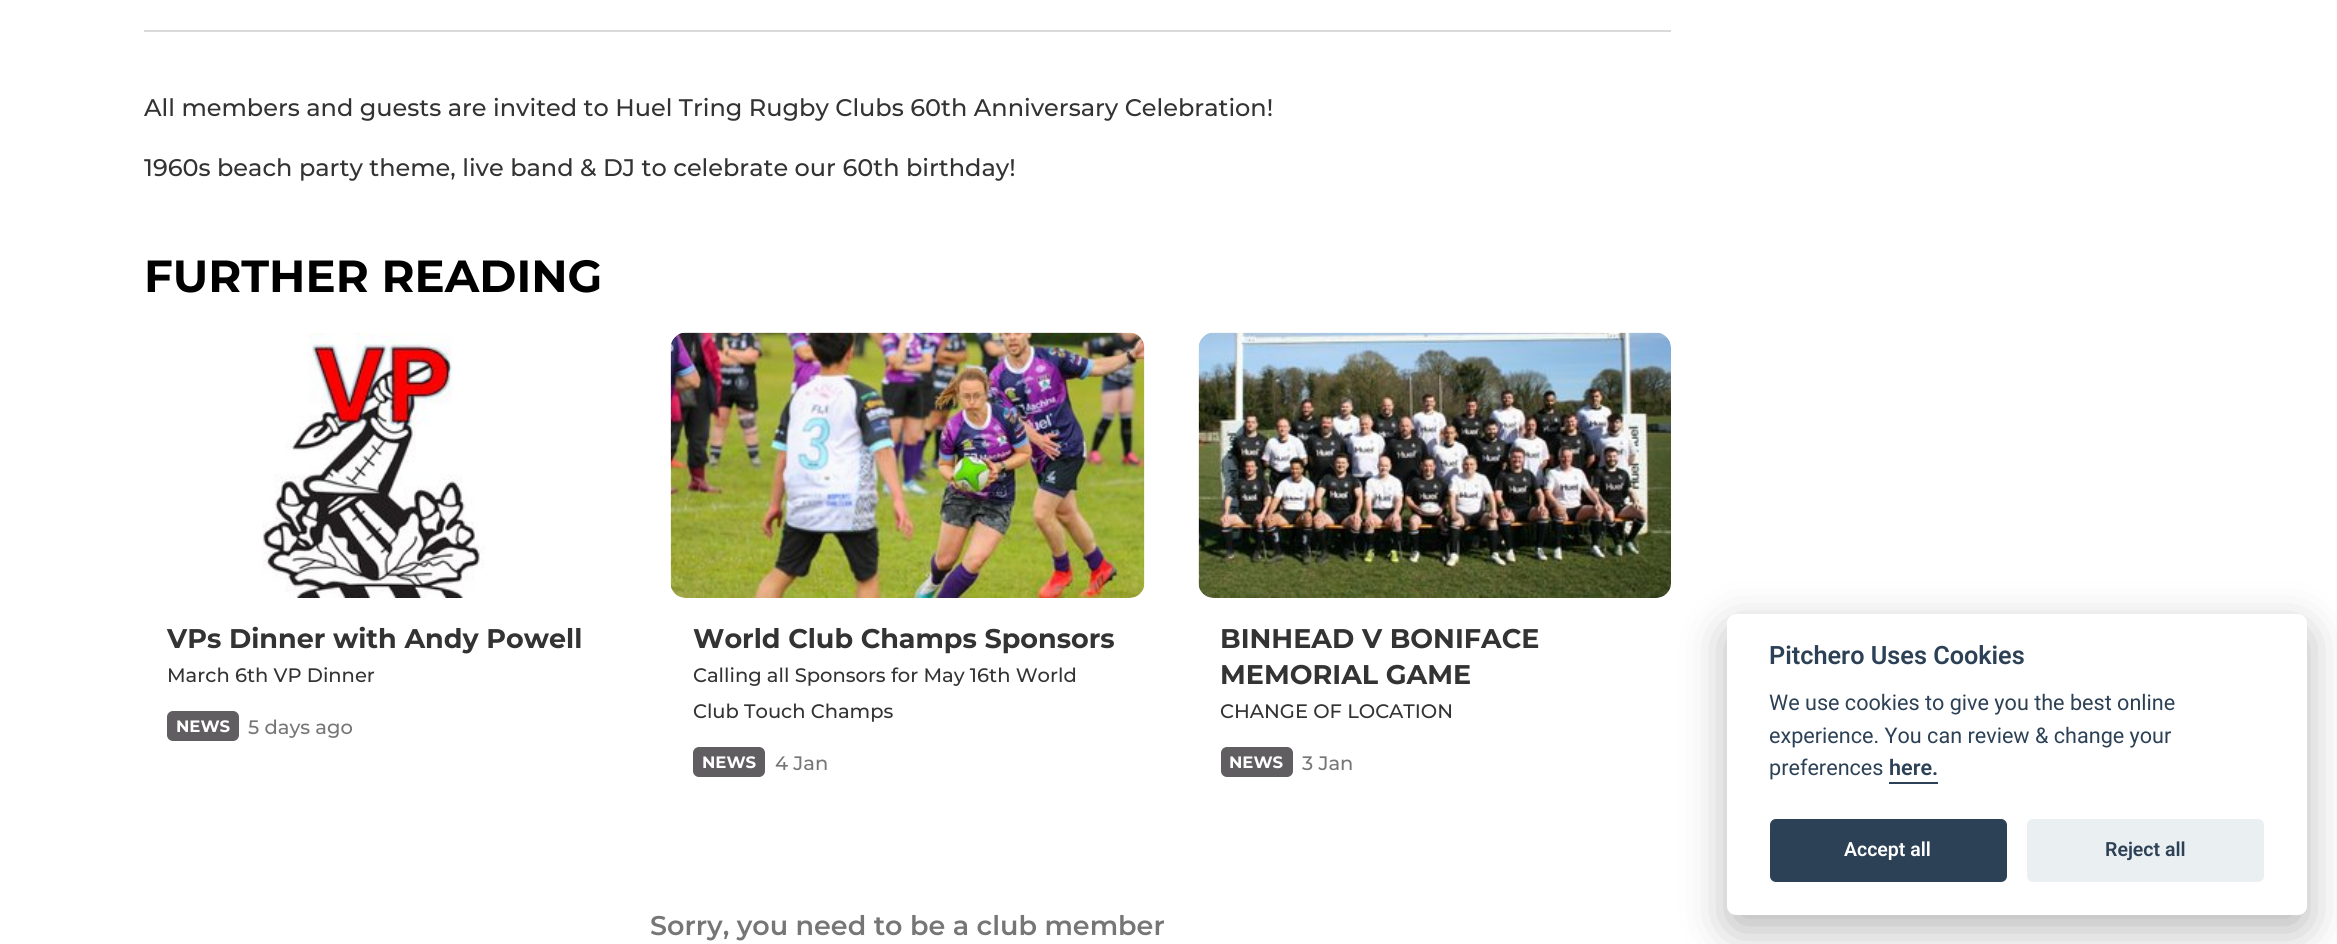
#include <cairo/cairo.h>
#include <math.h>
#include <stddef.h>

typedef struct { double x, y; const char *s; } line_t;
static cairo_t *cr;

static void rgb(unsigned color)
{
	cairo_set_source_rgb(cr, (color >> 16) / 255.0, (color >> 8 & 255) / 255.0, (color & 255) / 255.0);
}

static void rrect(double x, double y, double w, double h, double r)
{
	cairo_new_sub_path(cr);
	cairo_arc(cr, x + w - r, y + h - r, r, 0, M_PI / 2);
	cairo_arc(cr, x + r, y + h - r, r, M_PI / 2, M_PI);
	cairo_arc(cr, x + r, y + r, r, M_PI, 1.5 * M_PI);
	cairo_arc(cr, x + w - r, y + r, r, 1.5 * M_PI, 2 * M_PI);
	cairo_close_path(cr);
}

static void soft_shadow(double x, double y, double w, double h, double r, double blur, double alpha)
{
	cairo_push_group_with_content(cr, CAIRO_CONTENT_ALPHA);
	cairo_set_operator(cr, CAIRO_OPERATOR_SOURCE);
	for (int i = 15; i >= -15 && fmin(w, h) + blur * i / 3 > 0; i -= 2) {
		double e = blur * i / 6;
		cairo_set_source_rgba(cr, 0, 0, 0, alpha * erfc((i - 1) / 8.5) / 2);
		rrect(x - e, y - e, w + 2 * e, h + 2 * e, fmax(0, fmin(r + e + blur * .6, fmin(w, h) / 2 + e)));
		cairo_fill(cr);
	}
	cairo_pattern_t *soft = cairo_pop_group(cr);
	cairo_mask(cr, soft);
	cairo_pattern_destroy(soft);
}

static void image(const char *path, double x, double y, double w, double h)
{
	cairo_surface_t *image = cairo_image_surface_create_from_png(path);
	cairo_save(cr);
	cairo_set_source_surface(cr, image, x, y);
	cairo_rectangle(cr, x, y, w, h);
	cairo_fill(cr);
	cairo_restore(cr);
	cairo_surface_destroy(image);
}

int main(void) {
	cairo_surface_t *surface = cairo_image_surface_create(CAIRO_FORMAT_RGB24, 2337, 944);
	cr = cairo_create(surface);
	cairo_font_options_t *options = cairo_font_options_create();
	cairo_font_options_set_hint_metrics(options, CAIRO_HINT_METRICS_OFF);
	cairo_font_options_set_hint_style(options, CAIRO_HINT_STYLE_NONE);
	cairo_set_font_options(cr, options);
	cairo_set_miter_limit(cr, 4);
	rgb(0xffffff);
	cairo_paint(cr);
	rgb(0xd9d9d9);
	cairo_rectangle(cr, 144, 30, 1527, 2);
	cairo_fill(cr);
	image("img/1.png", 262, 333, 223, 265);
	rgb(0x615e61);
	rrect(167, 711, 72, 30, 6);
	cairo_fill(cr);
	image("img/2.png", 670, 332, 475, 266);
	rrect(693, 747, 72, 30, 6);
	cairo_fill(cr);
	image("img/3.png", 1198, 332, 473, 266);
	rrect(1221, 747, 72, 30, 6);
	cairo_fill(cr);
	rgb(0x020203);
	soft_shadow(1727, 629, 580, 301, 9, 22.5, 0.28);
	rgb(0xffffff);
	rrect(1727, 614, 580, 301, 9);
	cairo_fill(cr);
	rgb(0x2d4156);
	cairo_rectangle(cr, 1889, 782, 49, 2);
	cairo_fill(cr);
	rrect(1770, 819, 237, 63, 6);
	cairo_fill(cr);
	rgb(0xeaeff2);
	rrect(2027, 819, 237, 63, 6);
	cairo_fill(cr);
	cairo_select_font_face(cr, "Montserrat Medium", CAIRO_FONT_SLANT_NORMAL, CAIRO_FONT_WEIGHT_NORMAL);
	cairo_set_font_size(cr, 24);
	rgb(0x333333);
	cairo_move_to(cr, 144, 116);
	cairo_show_text(cr, "All members and guests are invited to Huel Tring Rugby Clubs 60th Anniversary Celebration!");
	cairo_move_to(cr, 144, 176);
	cairo_show_text(cr, "1960s beach party theme, live band & DJ to celebrate our 60th birthday!");
	cairo_select_font_face(cr, "Montserrat", CAIRO_FONT_SLANT_NORMAL, CAIRO_FONT_WEIGHT_BOLD);
	cairo_set_font_size(cr, 45);
	rgb(0x000000);
	cairo_move_to(cr, 144, 292);
	cairo_show_text(cr, "FURTHER READING");
	cairo_set_font_size(cr, 27);
	rgb(0x333333);
	cairo_move_to(cr, 167, 648);
	cairo_show_text(cr, "VPs Dinner with Andy Powell");
	cairo_select_font_face(cr, "Montserrat Medium", CAIRO_FONT_SLANT_NORMAL, CAIRO_FONT_WEIGHT_NORMAL);
	cairo_set_font_size(cr, 19.5);
	cairo_move_to(cr, 167, 682);
	cairo_show_text(cr, "March 6th VP Dinner");
	cairo_select_font_face(cr, "Montserrat", CAIRO_FONT_SLANT_NORMAL, CAIRO_FONT_WEIGHT_BOLD);
	cairo_set_font_size(cr, 16.5);
	rgb(0xffffff);
	cairo_move_to(cr, 176, 732);
	cairo_show_text(cr, "NEWS");
	cairo_select_font_face(cr, "Montserrat Medium", CAIRO_FONT_SLANT_NORMAL, CAIRO_FONT_WEIGHT_NORMAL);
	cairo_set_font_size(cr, 19.5);
	rgb(0x767676);
	cairo_move_to(cr, 248, 734);
	cairo_show_text(cr, "5 days ago");
	cairo_select_font_face(cr, "Montserrat", CAIRO_FONT_SLANT_NORMAL, CAIRO_FONT_WEIGHT_BOLD);
	cairo_set_font_size(cr, 27);
	rgb(0x333333);
	cairo_move_to(cr, 693, 648);
	cairo_show_text(cr, "World Club Champs Sponsors");
	cairo_select_font_face(cr, "Montserrat Medium", CAIRO_FONT_SLANT_NORMAL, CAIRO_FONT_WEIGHT_NORMAL);
	cairo_set_font_size(cr, 19.5);
	cairo_move_to(cr, 693, 682);
	cairo_show_text(cr, "Calling all Sponsors for May 16th World");
	cairo_move_to(cr, 693, 718);
	cairo_show_text(cr, "Club Touch Champs");
	cairo_select_font_face(cr, "Montserrat", CAIRO_FONT_SLANT_NORMAL, CAIRO_FONT_WEIGHT_BOLD);
	cairo_set_font_size(cr, 16.5);
	rgb(0xffffff);
	cairo_move_to(cr, 702, 768);
	cairo_show_text(cr, "NEWS");
	cairo_select_font_face(cr, "Montserrat Medium", CAIRO_FONT_SLANT_NORMAL, CAIRO_FONT_WEIGHT_NORMAL);
	cairo_set_font_size(cr, 19.5);
	rgb(0x767676);
	cairo_move_to(cr, 775, 770);
	cairo_show_text(cr, "4 Jan");
	cairo_select_font_face(cr, "Montserrat", CAIRO_FONT_SLANT_NORMAL, CAIRO_FONT_WEIGHT_BOLD);
	cairo_set_font_size(cr, 27);
	rgb(0x333333);
	cairo_move_to(cr, 1220, 648);
	cairo_show_text(cr, "BINHEAD V BONIFACE");
	cairo_move_to(cr, 1220, 684);
	cairo_show_text(cr, "MEMORIAL GAME");
	cairo_select_font_face(cr, "Montserrat Medium", CAIRO_FONT_SLANT_NORMAL, CAIRO_FONT_WEIGHT_NORMAL);
	cairo_set_font_size(cr, 19.5);
	cairo_move_to(cr, 1220, 718);
	cairo_show_text(cr, "CHANGE OF LOCATION");
	cairo_select_font_face(cr, "Montserrat", CAIRO_FONT_SLANT_NORMAL, CAIRO_FONT_WEIGHT_BOLD);
	cairo_set_font_size(cr, 16.5);
	rgb(0xffffff);
	cairo_move_to(cr, 1229, 768);
	cairo_show_text(cr, "NEWS");
	cairo_select_font_face(cr, "Montserrat Medium", CAIRO_FONT_SLANT_NORMAL, CAIRO_FONT_WEIGHT_NORMAL);
	cairo_set_font_size(cr, 19.5);
	rgb(0x767676);
	cairo_move_to(cr, 1302, 770);
	cairo_show_text(cr, "3 Jan");
	cairo_select_font_face(cr, "Montserrat SemiBold", CAIRO_FONT_SLANT_NORMAL, CAIRO_FONT_WEIGHT_NORMAL);
	cairo_set_font_size(cr, 27);
	cairo_move_to(cr, 650, 935);
	cairo_show_text(cr, "Sorry, you need to be a club member");
	cairo_select_font_face(cr, "Roboto SemiBold", CAIRO_FONT_SLANT_NORMAL, CAIRO_FONT_WEIGHT_NORMAL);
	cairo_set_font_size(cr, 25.25);
	rgb(0x2d4156);
	cairo_move_to(cr, 1769, 664);
	cairo_show_text(cr, "Pitchero Uses Cookies");
	cairo_select_font_face(cr, "Roboto", CAIRO_FONT_SLANT_NORMAL, CAIRO_FONT_WEIGHT_NORMAL);
	cairo_set_font_size(cr, 21.6);
	{
		static const line_t items[] = {
			{1769, 710, "We use cookies to give you the best online"},
			{1769, 743, "experience. You can review & change your"},
			{1769, 775, "preferences"},
		};
		for (size_t i = 0; i < sizeof items / sizeof *items; i++) {
			cairo_move_to(cr, items[i].x, items[i].y);
			cairo_show_text(cr, items[i].s);
		}
	}
	cairo_select_font_face(cr, "Roboto SemiBold", CAIRO_FONT_SLANT_NORMAL, CAIRO_FONT_WEIGHT_NORMAL);
	cairo_move_to(cr, 1889, 775);
	cairo_show_text(cr, "here.");
	cairo_set_font_size(cr, 19.5);
	rgb(0xffffff);
	cairo_move_to(cr, 1844, 856);
	cairo_show_text(cr, "Accept all");
	rgb(0x2d4156);
	cairo_move_to(cr, 2105, 856);
	cairo_show_text(cr, "Reject all");
	cairo_surface_write_to_png(surface, "page.png");
	cairo_font_options_destroy(options);
	cairo_destroy(cr);
	cairo_surface_destroy(surface);
	return 0;
}
